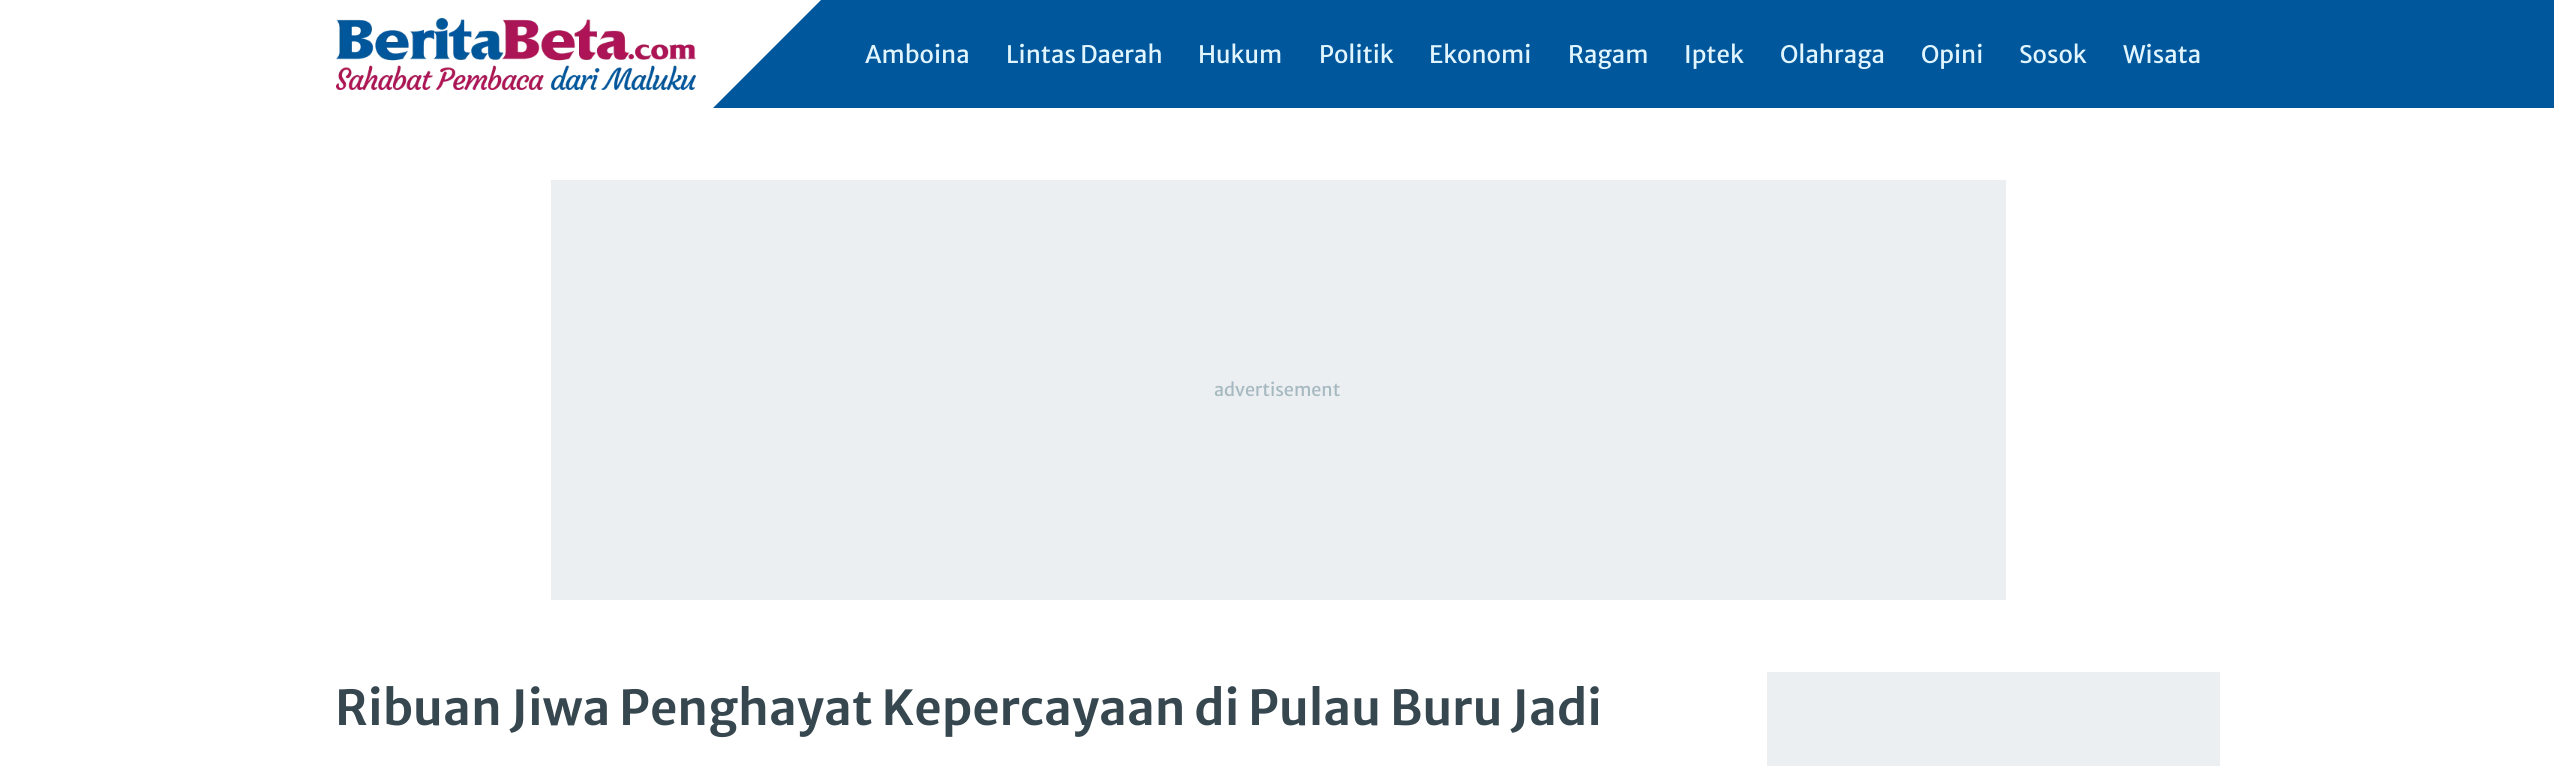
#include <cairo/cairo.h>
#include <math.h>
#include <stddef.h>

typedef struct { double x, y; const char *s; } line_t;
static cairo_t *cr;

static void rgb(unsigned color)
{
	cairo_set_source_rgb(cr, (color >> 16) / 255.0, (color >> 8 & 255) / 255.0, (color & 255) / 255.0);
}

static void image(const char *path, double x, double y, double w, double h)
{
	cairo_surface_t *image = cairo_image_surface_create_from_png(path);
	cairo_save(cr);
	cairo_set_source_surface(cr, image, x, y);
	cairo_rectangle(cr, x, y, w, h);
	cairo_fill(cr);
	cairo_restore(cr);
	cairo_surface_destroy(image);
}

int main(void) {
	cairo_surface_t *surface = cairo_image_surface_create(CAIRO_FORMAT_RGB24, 2554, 766);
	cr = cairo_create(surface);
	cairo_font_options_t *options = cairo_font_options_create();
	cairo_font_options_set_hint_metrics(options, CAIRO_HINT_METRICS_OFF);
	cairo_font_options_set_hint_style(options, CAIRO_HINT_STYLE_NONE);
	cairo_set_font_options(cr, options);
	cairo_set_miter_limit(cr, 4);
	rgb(0xffffff);
	cairo_paint(cr);
	rgb(0x01579b);
	cairo_rectangle(cr, 713, 0, 1841, 108);
	cairo_fill(cr);
	rgb(0xffffff);
	cairo_new_path(cr);
	cairo_move_to(cr, 311, 0);
	cairo_line_to(cr, 821, 0);
	cairo_line_to(cr, 713, 108);
	cairo_line_to(cr, 203, 108);
	cairo_close_path(cr);
	cairo_fill(cr);
	image("img/1.png", 336, 18, 360, 72);
	rgb(0xeceff1);
	cairo_rectangle(cr, 551, 180, 1455, 420);
	cairo_fill(cr);
	cairo_rectangle(cr, 1767, 672, 453, 94);
	cairo_fill(cr);
	cairo_select_font_face(cr, "Merriweather Sans", CAIRO_FONT_SLANT_NORMAL, CAIRO_FONT_WEIGHT_NORMAL);
	cairo_set_font_size(cr, 24);
	rgb(0xe1f5fe);
	{
		static const line_t items[] = {
			{865, 63, "Amboina"},
			{1006, 63, "Lintas Daerah"},
			{1198, 63, "Hukum"},
			{1319, 63, "Politik"},
			{1429, 63, "Ekonomi"},
			{1568, 63, "Ragam"},
			{1684, 63, "Iptek"},
			{1780, 63, "Olahraga"},
			{1921, 63, "Opini"},
			{2019, 63, "Sosok"},
			{2123, 63, "Wisata"},
		};
		for (size_t i = 0; i < sizeof items / sizeof *items; i++) {
			cairo_move_to(cr, items[i].x, items[i].y);
			cairo_show_text(cr, items[i].s);
		}
	}
	cairo_set_font_size(cr, 18);
	rgb(0xa6b9c1);
	cairo_move_to(cr, 1214, 396);
	cairo_show_text(cr, "advertisement");
	cairo_select_font_face(cr, "Merriweather Sans SemiBold", CAIRO_FONT_SLANT_NORMAL, CAIRO_FONT_WEIGHT_NORMAL);
	cairo_set_font_size(cr, 48);
	rgb(0x37474f);
	cairo_move_to(cr, 335, 725);
	cairo_show_text(cr, "Ribuan Jiwa Penghayat Kepercayaan di Pulau Buru Jadi");
	cairo_surface_write_to_png(surface, "page.png");
	cairo_font_options_destroy(options);
	cairo_destroy(cr);
	cairo_surface_destroy(surface);
	return 0;
}
